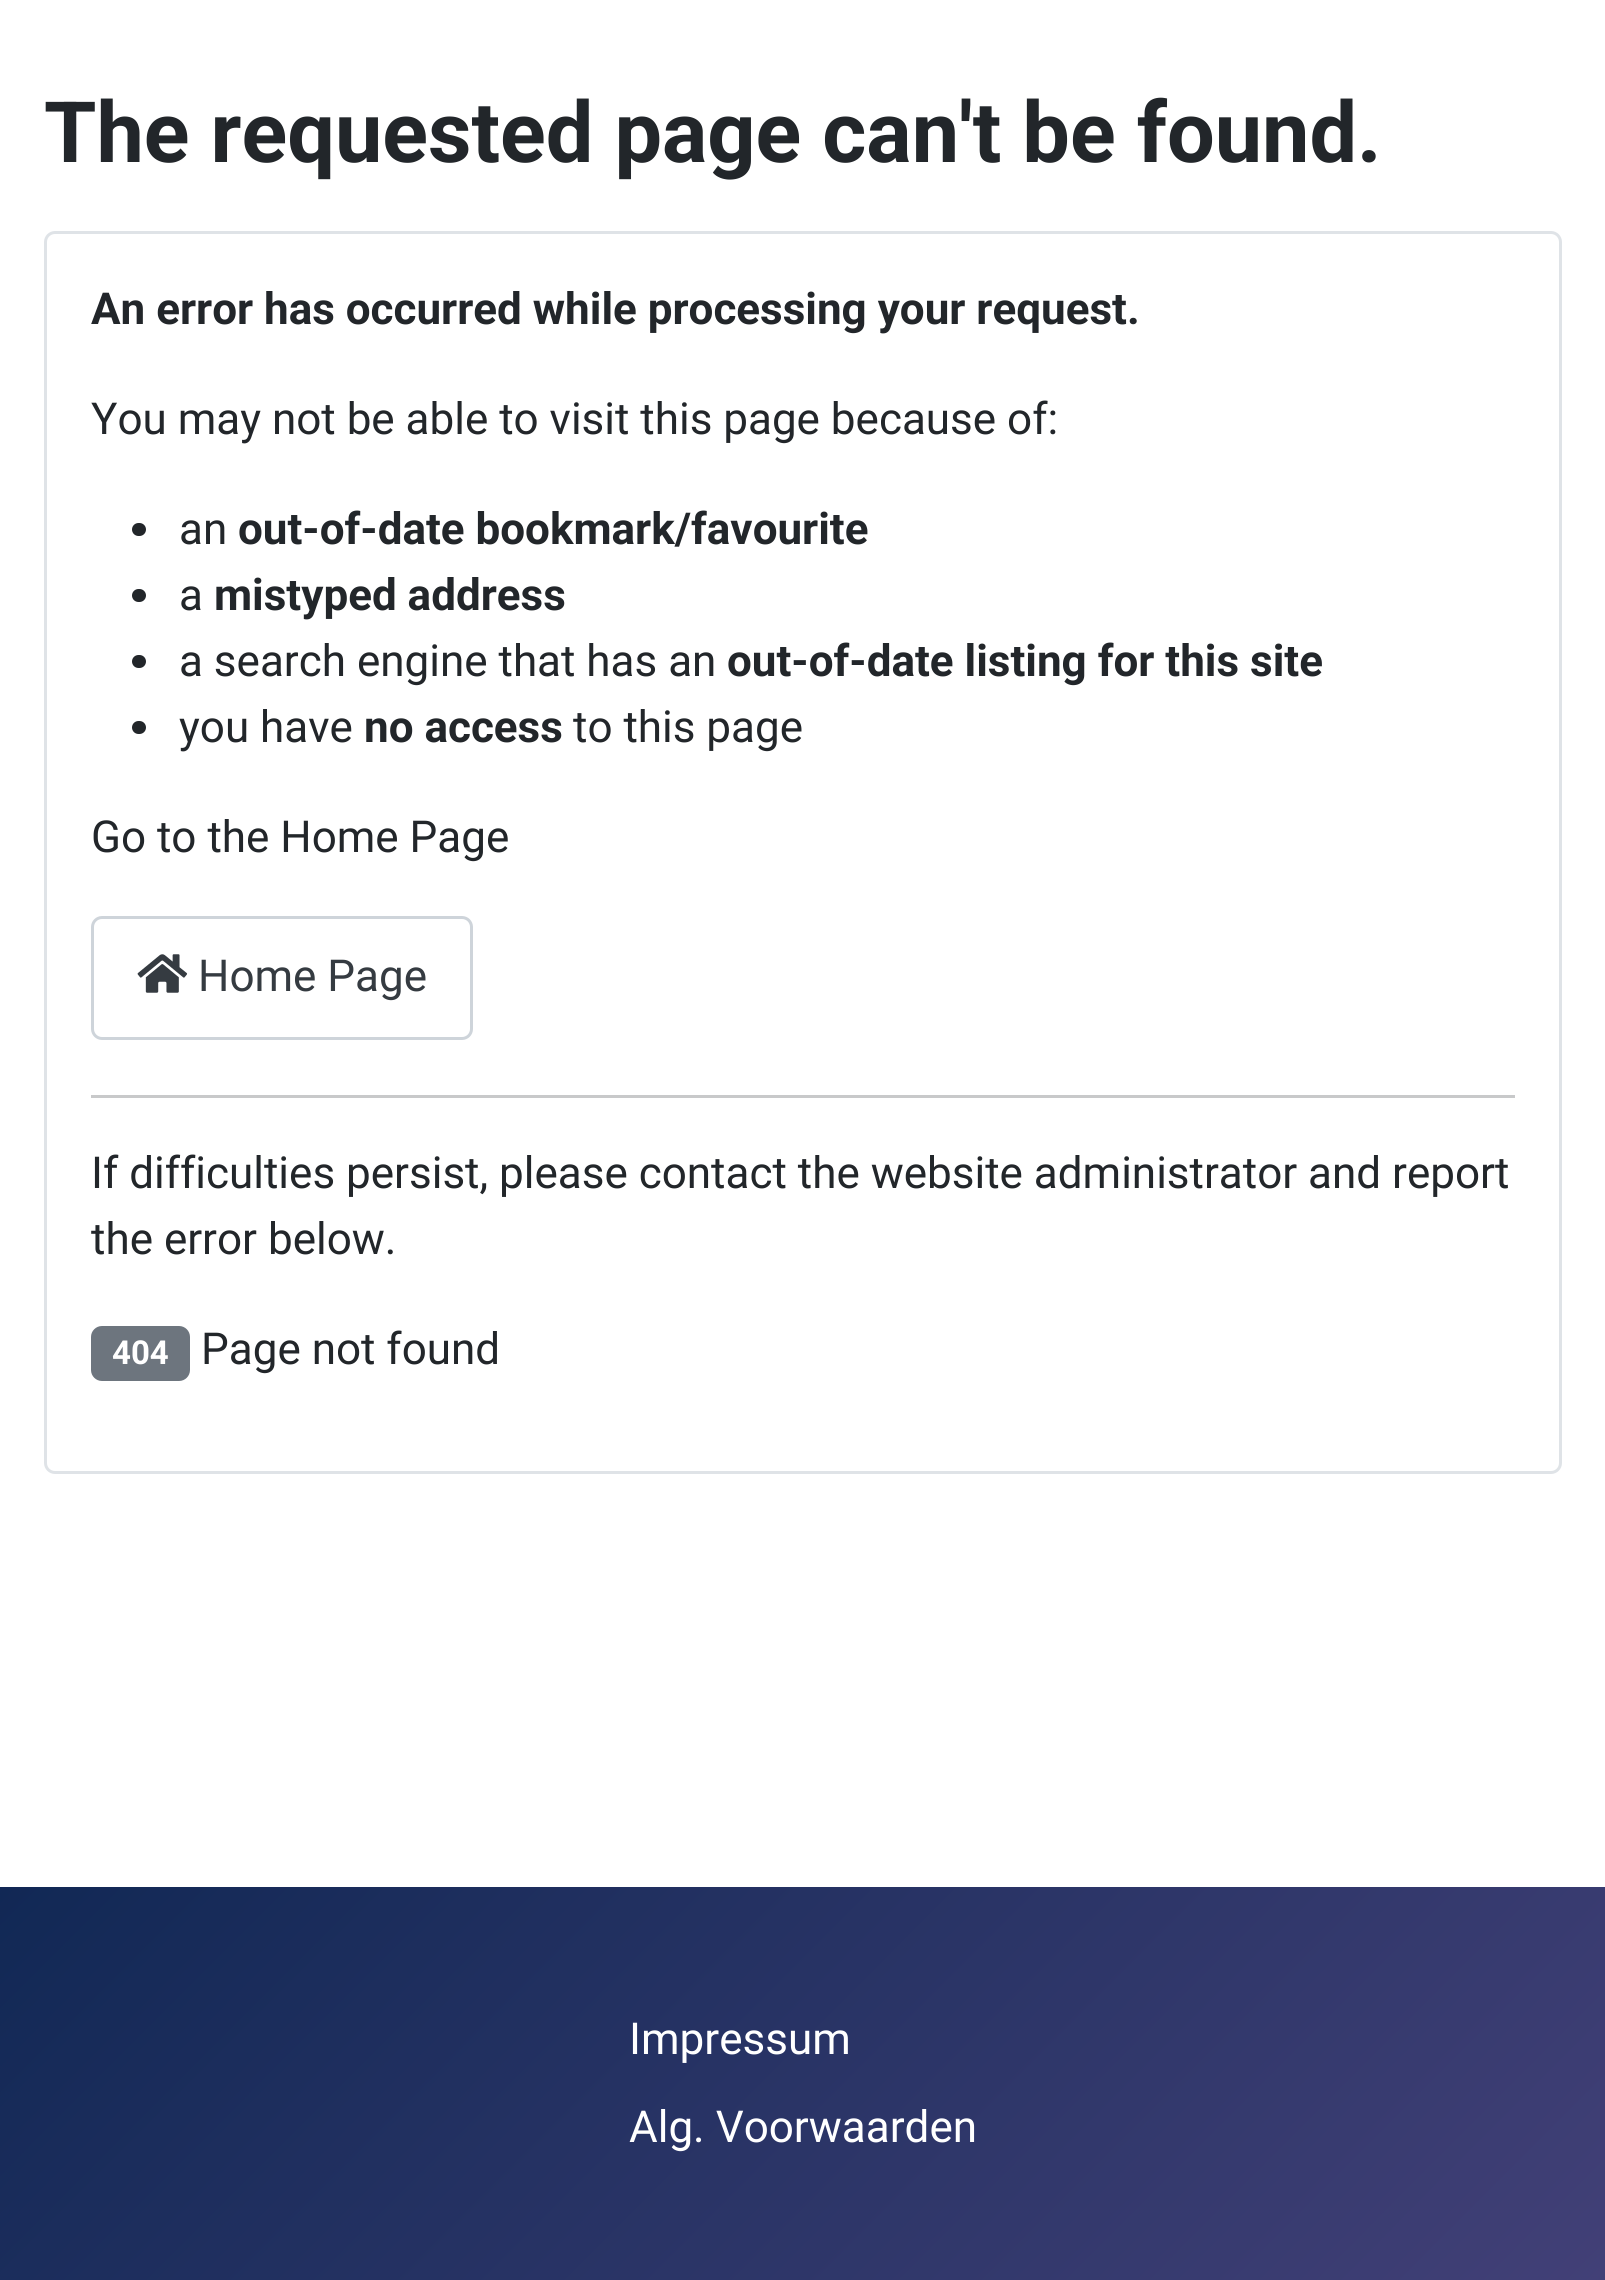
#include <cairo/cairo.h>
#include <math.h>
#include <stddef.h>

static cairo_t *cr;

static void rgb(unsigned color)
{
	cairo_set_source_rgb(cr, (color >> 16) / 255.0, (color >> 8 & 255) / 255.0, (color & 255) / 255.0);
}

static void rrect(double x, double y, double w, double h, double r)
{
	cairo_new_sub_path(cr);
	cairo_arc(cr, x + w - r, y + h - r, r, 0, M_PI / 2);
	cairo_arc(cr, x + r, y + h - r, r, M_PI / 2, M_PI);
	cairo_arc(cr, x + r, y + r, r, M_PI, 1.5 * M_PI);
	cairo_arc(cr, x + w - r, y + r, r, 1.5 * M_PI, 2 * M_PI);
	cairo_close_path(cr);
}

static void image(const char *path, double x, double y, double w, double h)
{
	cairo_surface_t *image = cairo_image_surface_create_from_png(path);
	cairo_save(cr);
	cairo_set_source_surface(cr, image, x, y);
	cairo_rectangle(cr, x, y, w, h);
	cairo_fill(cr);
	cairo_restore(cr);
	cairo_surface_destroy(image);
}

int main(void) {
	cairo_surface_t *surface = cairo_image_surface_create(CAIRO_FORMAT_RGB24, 1605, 2280);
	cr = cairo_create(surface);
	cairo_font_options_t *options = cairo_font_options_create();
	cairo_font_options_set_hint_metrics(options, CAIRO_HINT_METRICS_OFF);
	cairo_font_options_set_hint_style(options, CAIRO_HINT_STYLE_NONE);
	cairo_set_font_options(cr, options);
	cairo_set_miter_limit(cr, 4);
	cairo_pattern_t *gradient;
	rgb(0xffffff);
	cairo_paint(cr);
	rrect(45.5, 232.5, 1515, 1240, 9.5);
	rgb(0xdfe3e7);
	cairo_set_line_width(cr, 3);
	cairo_stroke(cr);
	rgb(0x22262a);
	rrect(132, 523, 14, 13, 6.5);
	cairo_fill(cr);
	rrect(132, 589, 14, 13, 6.5);
	cairo_fill(cr);
	rrect(132, 655, 14, 13, 6.5);
	cairo_fill(cr);
	rrect(132, 721, 14, 13, 6.5);
	cairo_fill(cr);
	rrect(92.5, 917.5, 379, 121, 9.5);
	rgb(0xced4da);
	cairo_stroke(cr);
	image("img/1.png", 137, 954, 51, 39);
	rgb(0xc8c9ca);
	cairo_rectangle(cr, 91, 1095, 1424, 3);
	cairo_fill(cr);
	rgb(0x6d757e);
	rrect(91, 1326, 99, 55, 11);
	cairo_fill(cr);
	gradient = cairo_pattern_create_linear(302, 1584, 1304, 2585);
	cairo_pattern_add_color_stop_rgba(gradient, 0, 0.067, 0.157, 0.333, 1);
	cairo_pattern_add_color_stop_rgba(gradient, 1, 0.259, 0.251, 0.467, 1);
	cairo_set_source(cr, gradient);
	cairo_pattern_destroy(gradient);
	cairo_rectangle(cr, 0, 1887, 1605, 393);
	cairo_fill(cr);
	cairo_select_font_face(cr, "Roboto", CAIRO_FONT_SLANT_NORMAL, CAIRO_FONT_WEIGHT_BOLD);
	cairo_set_font_size(cr, 84.6);
	rgb(0x22262a);
	cairo_move_to(cr, 44, 162);
	cairo_show_text(cr, "The requested page can't be found.");
	cairo_set_font_size(cr, 44);
	cairo_move_to(cr, 91, 324);
	cairo_show_text(cr, "An error has occurred while processing your request.");
	cairo_select_font_face(cr, "Roboto", CAIRO_FONT_SLANT_NORMAL, CAIRO_FONT_WEIGHT_NORMAL);
	cairo_move_to(cr, 91, 434);
	cairo_show_text(cr, "You may not be able to visit this page because of:");
	cairo_move_to(cr, 179, 544);
	cairo_show_text(cr, "an");
	cairo_select_font_face(cr, "Roboto", CAIRO_FONT_SLANT_NORMAL, CAIRO_FONT_WEIGHT_BOLD);
	cairo_move_to(cr, 238, 544);
	cairo_show_text(cr, "out-of-date bookmark/favourite");
	cairo_select_font_face(cr, "Roboto", CAIRO_FONT_SLANT_NORMAL, CAIRO_FONT_WEIGHT_NORMAL);
	cairo_move_to(cr, 179, 610);
	cairo_show_text(cr, "a");
	cairo_select_font_face(cr, "Roboto", CAIRO_FONT_SLANT_NORMAL, CAIRO_FONT_WEIGHT_BOLD);
	cairo_move_to(cr, 214, 610);
	cairo_show_text(cr, "mistyped address");
	cairo_select_font_face(cr, "Roboto", CAIRO_FONT_SLANT_NORMAL, CAIRO_FONT_WEIGHT_NORMAL);
	cairo_move_to(cr, 179, 676);
	cairo_show_text(cr, "a search engine that has an");
	cairo_select_font_face(cr, "Roboto", CAIRO_FONT_SLANT_NORMAL, CAIRO_FONT_WEIGHT_BOLD);
	cairo_move_to(cr, 727, 676);
	cairo_show_text(cr, "out-of-date listing for this site");
	cairo_select_font_face(cr, "Roboto", CAIRO_FONT_SLANT_NORMAL, CAIRO_FONT_WEIGHT_NORMAL);
	cairo_move_to(cr, 179, 742);
	cairo_show_text(cr, "you have");
	cairo_select_font_face(cr, "Roboto", CAIRO_FONT_SLANT_NORMAL, CAIRO_FONT_WEIGHT_BOLD);
	cairo_move_to(cr, 364, 742);
	cairo_show_text(cr, "no access");
	cairo_select_font_face(cr, "Roboto", CAIRO_FONT_SLANT_NORMAL, CAIRO_FONT_WEIGHT_NORMAL);
	cairo_move_to(cr, 573, 742);
	cairo_show_text(cr, "to this page");
	cairo_move_to(cr, 91, 852);
	cairo_show_text(cr, "Go to the Home Page");
	rgb(0x353b41);
	cairo_move_to(cr, 198, 991);
	cairo_show_text(cr, "Home Page");
	rgb(0x22262a);
	cairo_move_to(cr, 91, 1188);
	cairo_show_text(cr, "If difficulties persist, please contact the website administrator and report");
	cairo_move_to(cr, 91, 1254);
	cairo_show_text(cr, "the error below.");
	cairo_select_font_face(cr, "Roboto", CAIRO_FONT_SLANT_NORMAL, CAIRO_FONT_WEIGHT_BOLD);
	cairo_set_font_size(cr, 33);
	rgb(0xffffff);
	cairo_move_to(cr, 112, 1364);
	cairo_show_text(cr, "404");
	cairo_select_font_face(cr, "Roboto", CAIRO_FONT_SLANT_NORMAL, CAIRO_FONT_WEIGHT_NORMAL);
	cairo_set_font_size(cr, 44);
	rgb(0x22262a);
	cairo_move_to(cr, 201, 1364);
	cairo_show_text(cr, "Page not found");
	rgb(0xffffff);
	cairo_move_to(cr, 629, 2054);
	cairo_show_text(cr, "Impressum");
	cairo_move_to(cr, 629, 2142);
	cairo_show_text(cr, "Alg. Voorwaarden");
	cairo_surface_write_to_png(surface, "page.png");
	cairo_font_options_destroy(options);
	cairo_destroy(cr);
	cairo_surface_destroy(surface);
	return 0;
}
